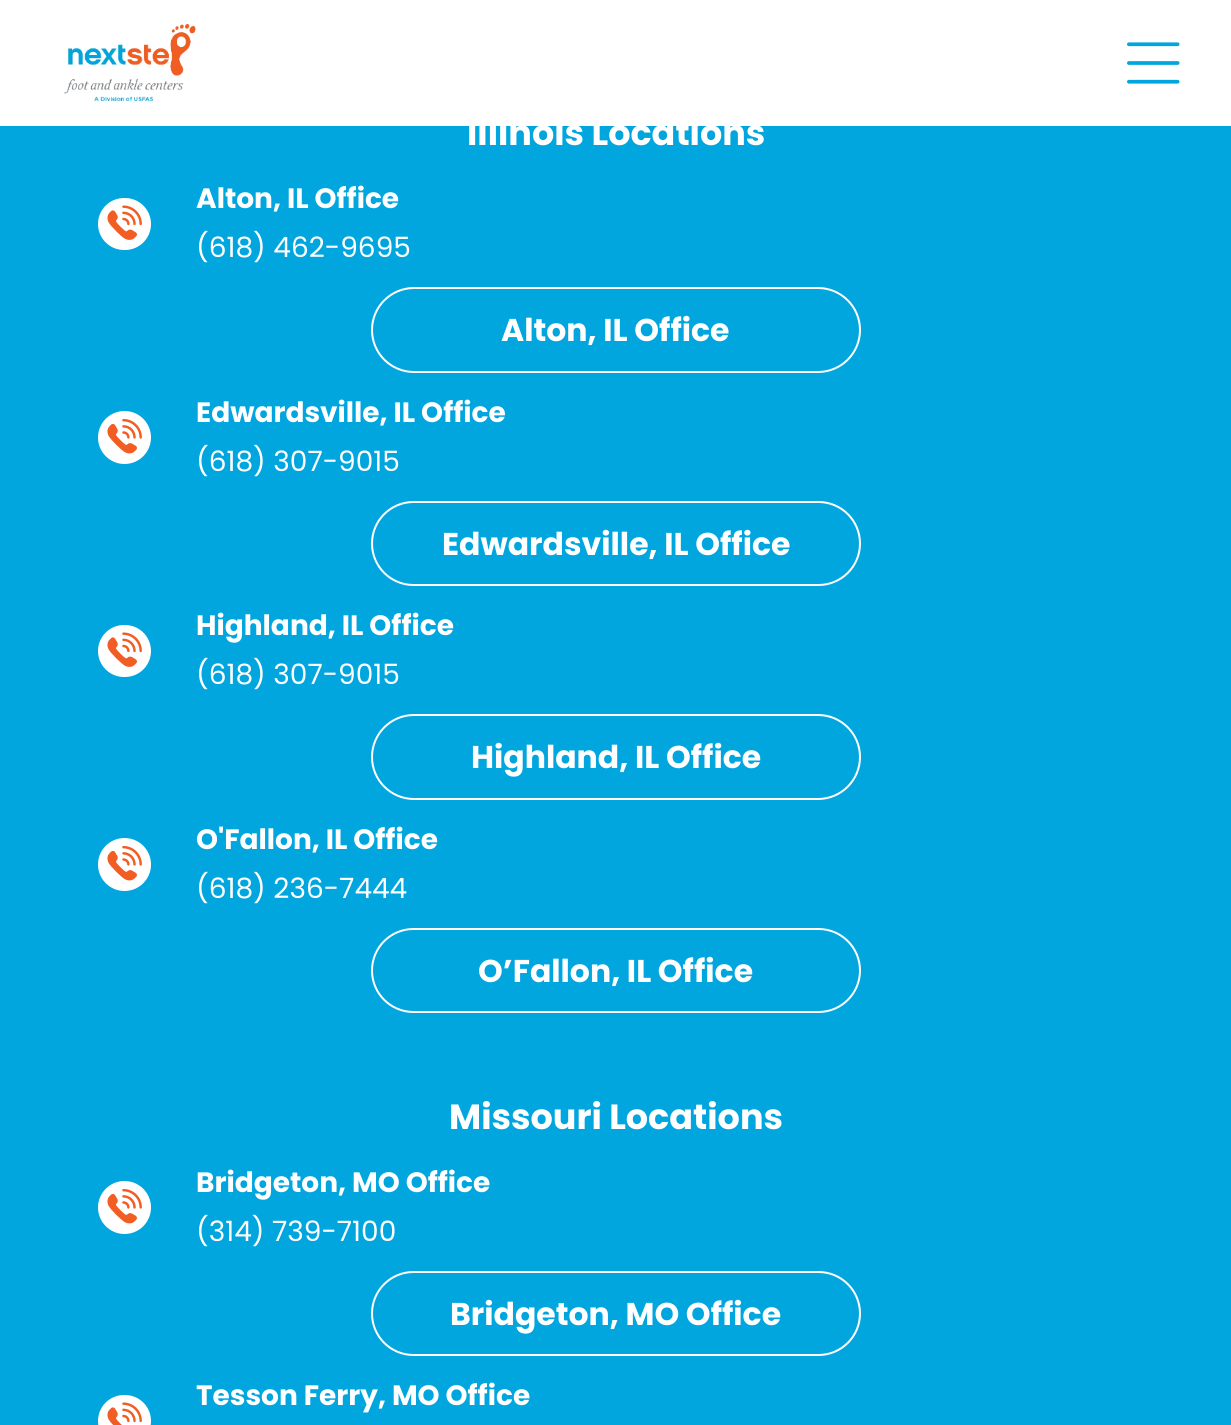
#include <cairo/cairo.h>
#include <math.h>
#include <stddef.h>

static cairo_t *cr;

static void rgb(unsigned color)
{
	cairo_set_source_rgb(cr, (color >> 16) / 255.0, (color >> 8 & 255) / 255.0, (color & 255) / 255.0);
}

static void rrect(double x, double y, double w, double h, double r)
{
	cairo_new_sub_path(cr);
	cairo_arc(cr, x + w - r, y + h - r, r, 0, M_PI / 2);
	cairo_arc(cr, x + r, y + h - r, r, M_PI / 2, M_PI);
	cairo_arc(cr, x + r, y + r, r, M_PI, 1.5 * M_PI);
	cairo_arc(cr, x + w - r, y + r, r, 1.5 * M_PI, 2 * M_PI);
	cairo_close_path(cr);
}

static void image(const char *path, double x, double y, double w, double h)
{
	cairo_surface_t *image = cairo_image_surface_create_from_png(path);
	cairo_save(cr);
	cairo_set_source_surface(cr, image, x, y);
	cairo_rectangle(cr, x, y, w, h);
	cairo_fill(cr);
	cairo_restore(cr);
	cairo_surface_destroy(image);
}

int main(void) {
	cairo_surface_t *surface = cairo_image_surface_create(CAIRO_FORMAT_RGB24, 1231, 1425);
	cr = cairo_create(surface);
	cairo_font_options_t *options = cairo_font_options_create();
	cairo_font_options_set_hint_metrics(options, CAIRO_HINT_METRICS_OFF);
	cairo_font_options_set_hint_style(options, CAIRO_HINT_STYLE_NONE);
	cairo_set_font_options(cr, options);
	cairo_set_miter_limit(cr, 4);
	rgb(0x01a6df);
	cairo_paint(cr);
	rgb(0xffffff);
	cairo_rectangle(cr, 0, 0, 1231, 126);
	cairo_fill(cr);
	image("img/1.png", 64, 24, 132, 78);
	image("img/2.png", 1127, 42, 53, 42);
	rrect(98, 198, 53, 52, 26);
	cairo_fill(cr);
	image("img/3.png", 107, 205, 35, 35);
	rrect(372, 288, 488, 84, 42);
	cairo_stroke(cr);
	cairo_arc(cr, 124.5, 437.5, 26.5, 0, 2 * M_PI);
	cairo_fill(cr);
	image("img/4.png", 107, 419, 35, 35);
	rrect(372, 502, 488, 83, 41.5);
	cairo_stroke(cr);
	rrect(98, 625, 53, 52, 26);
	cairo_fill(cr);
	image("img/3.png", 107, 632, 35, 35);
	rrect(372, 715, 488, 84, 42);
	cairo_stroke(cr);
	cairo_arc(cr, 124.5, 864.5, 26.5, 0, 2 * M_PI);
	cairo_fill(cr);
	image("img/4.png", 107, 846, 35, 35);
	rrect(372, 929, 488, 83, 41.5);
	cairo_stroke(cr);
	cairo_arc(cr, 124.5, 1207.5, 26.5, 0, 2 * M_PI);
	cairo_fill(cr);
	image("img/4.png", 107, 1189, 35, 35);
	rrect(372, 1272, 488, 83, 41.5);
	cairo_stroke(cr);
	rrect(98, 1395, 53, 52, 26);
	cairo_fill(cr);
	image("img/5.png", 107, 1402, 35, 23);
	cairo_select_font_face(cr, "Poppins", CAIRO_FONT_SLANT_NORMAL, CAIRO_FONT_WEIGHT_BOLD);
	cairo_set_font_size(cr, 35);
	cairo_move_to(cr, 467, 145);
	cairo_show_text(cr, "Illinois Locations");
	cairo_set_font_size(cr, 28);
	cairo_move_to(cr, 196, 208);
	cairo_show_text(cr, "Alton, IL Office");
	cairo_select_font_face(cr, "Poppins", CAIRO_FONT_SLANT_NORMAL, CAIRO_FONT_WEIGHT_NORMAL);
	cairo_move_to(cr, 196, 257);
	cairo_show_text(cr, "(618) 462-9695");
	cairo_select_font_face(cr, "Poppins", CAIRO_FONT_SLANT_NORMAL, CAIRO_FONT_WEIGHT_BOLD);
	cairo_set_font_size(cr, 31.5);
	cairo_move_to(cr, 501, 341);
	cairo_show_text(cr, "Alton, IL Office");
	cairo_set_font_size(cr, 28);
	cairo_move_to(cr, 196, 422);
	cairo_show_text(cr, "Edwardsville, IL Office");
	cairo_select_font_face(cr, "Poppins", CAIRO_FONT_SLANT_NORMAL, CAIRO_FONT_WEIGHT_NORMAL);
	cairo_move_to(cr, 196, 471);
	cairo_show_text(cr, "(618) 307-9015");
	cairo_select_font_face(cr, "Poppins", CAIRO_FONT_SLANT_NORMAL, CAIRO_FONT_WEIGHT_BOLD);
	cairo_set_font_size(cr, 31.5);
	cairo_move_to(cr, 442, 555);
	cairo_show_text(cr, "Edwardsville, IL Office");
	cairo_set_font_size(cr, 28);
	cairo_move_to(cr, 196, 635);
	cairo_show_text(cr, "Highland, IL Office");
	cairo_select_font_face(cr, "Poppins", CAIRO_FONT_SLANT_NORMAL, CAIRO_FONT_WEIGHT_NORMAL);
	cairo_move_to(cr, 196, 684);
	cairo_show_text(cr, "(618) 307-9015");
	cairo_select_font_face(cr, "Poppins", CAIRO_FONT_SLANT_NORMAL, CAIRO_FONT_WEIGHT_BOLD);
	cairo_set_font_size(cr, 31.5);
	cairo_move_to(cr, 471, 768);
	cairo_show_text(cr, "Highland, IL Office");
	cairo_set_font_size(cr, 28);
	cairo_move_to(cr, 196, 849);
	cairo_show_text(cr, "O'Fallon, IL Office");
	cairo_select_font_face(cr, "Poppins", CAIRO_FONT_SLANT_NORMAL, CAIRO_FONT_WEIGHT_NORMAL);
	cairo_move_to(cr, 196, 898);
	cairo_show_text(cr, "(618) 236-7444");
	cairo_select_font_face(cr, "Poppins", CAIRO_FONT_SLANT_NORMAL, CAIRO_FONT_WEIGHT_BOLD);
	cairo_set_font_size(cr, 31.5);
	cairo_move_to(cr, 478, 982);
	cairo_show_text(cr, "O’Fallon, IL Office");
	cairo_set_font_size(cr, 35);
	cairo_move_to(cr, 449, 1129);
	cairo_show_text(cr, "Missouri Locations");
	cairo_set_font_size(cr, 28);
	cairo_move_to(cr, 196, 1192);
	cairo_show_text(cr, "Bridgeton, MO Office");
	cairo_select_font_face(cr, "Poppins", CAIRO_FONT_SLANT_NORMAL, CAIRO_FONT_WEIGHT_NORMAL);
	cairo_move_to(cr, 196, 1241);
	cairo_show_text(cr, "(314) 739-7100");
	cairo_select_font_face(cr, "Poppins", CAIRO_FONT_SLANT_NORMAL, CAIRO_FONT_WEIGHT_BOLD);
	cairo_set_font_size(cr, 31.5);
	cairo_move_to(cr, 450, 1325);
	cairo_show_text(cr, "Bridgeton, MO Office");
	cairo_set_font_size(cr, 28);
	cairo_move_to(cr, 196, 1405);
	cairo_show_text(cr, "Tesson Ferry, MO Office");
	cairo_surface_write_to_png(surface, "page.png");
	cairo_font_options_destroy(options);
	cairo_destroy(cr);
	cairo_surface_destroy(surface);
	return 0;
}
